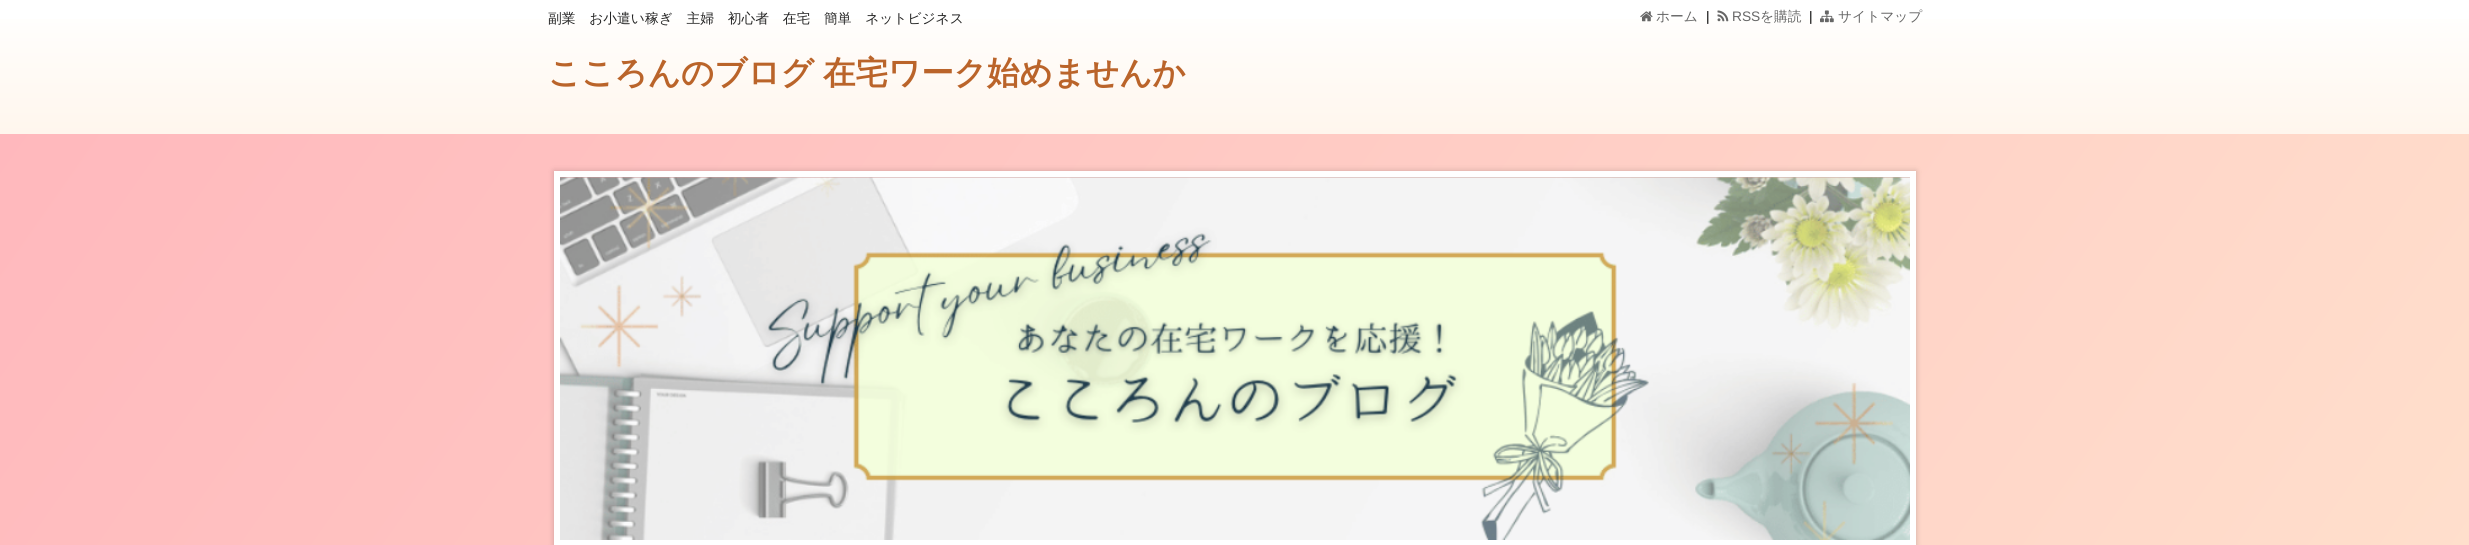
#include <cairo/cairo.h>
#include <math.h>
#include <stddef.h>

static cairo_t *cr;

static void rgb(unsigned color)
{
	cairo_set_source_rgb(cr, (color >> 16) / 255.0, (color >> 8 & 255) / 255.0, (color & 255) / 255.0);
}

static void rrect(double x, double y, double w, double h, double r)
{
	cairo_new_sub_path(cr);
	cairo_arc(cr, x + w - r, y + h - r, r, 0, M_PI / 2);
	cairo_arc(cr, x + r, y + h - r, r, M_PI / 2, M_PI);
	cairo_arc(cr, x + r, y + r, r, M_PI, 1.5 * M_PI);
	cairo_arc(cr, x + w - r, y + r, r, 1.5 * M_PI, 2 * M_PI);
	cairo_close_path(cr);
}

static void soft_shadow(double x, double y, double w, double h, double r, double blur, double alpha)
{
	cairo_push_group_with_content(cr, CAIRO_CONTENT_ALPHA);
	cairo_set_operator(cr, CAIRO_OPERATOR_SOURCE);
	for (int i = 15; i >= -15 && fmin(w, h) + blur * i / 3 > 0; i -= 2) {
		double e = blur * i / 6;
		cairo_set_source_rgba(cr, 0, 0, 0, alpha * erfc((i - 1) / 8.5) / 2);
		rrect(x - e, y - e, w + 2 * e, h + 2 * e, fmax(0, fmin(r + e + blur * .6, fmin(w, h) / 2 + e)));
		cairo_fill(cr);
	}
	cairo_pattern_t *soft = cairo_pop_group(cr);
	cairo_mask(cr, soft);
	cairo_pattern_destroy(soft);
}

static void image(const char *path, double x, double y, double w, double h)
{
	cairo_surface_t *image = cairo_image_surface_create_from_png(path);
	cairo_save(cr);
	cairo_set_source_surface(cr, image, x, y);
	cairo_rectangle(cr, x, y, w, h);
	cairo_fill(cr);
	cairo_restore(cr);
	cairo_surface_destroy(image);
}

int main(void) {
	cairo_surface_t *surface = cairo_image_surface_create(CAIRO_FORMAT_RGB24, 2469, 545);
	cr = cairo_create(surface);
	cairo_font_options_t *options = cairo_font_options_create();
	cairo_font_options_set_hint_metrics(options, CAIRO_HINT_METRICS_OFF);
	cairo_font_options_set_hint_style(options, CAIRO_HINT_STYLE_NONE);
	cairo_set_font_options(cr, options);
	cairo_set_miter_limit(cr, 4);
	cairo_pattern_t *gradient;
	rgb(0xffffff);
	cairo_paint(cr);
	gradient = cairo_pattern_create_linear(1235, 0, 1235, 134);
	cairo_pattern_add_color_stop_rgba(gradient, 0, 1, 1, 1, 1);
	cairo_pattern_add_color_stop_rgba(gradient, 1, 1, 0.965, 0.929, 1);
	cairo_set_source(cr, gradient);
	cairo_pattern_destroy(gradient);
	cairo_rectangle(cr, 0, 19, 2469, 115);
	cairo_fill(cr);
	image("img/1.png", 1640, 11, 13, 11);
	image("img/2.png", 1717, 10, 12, 12);
	image("img/3.png", 1820, 10, 14, 13);
	gradient = cairo_pattern_create_linear(301, -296, 2169, 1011);
	cairo_pattern_add_color_stop_rgba(gradient, 0, 1, 0.722, 0.741, 1);
	cairo_pattern_add_color_stop_rgba(gradient, 1, 1, 0.875, 0.8, 1);
	cairo_set_source(cr, gradient);
	cairo_pattern_destroy(gradient);
	cairo_rectangle(cr, 0, 134, 2469, 411);
	cairo_fill(cr);
	rgb(0x000000);
	soft_shadow(554, 171, 1362, 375, 0, 3, 0.2);
	cairo_rectangle(cr, 557, 174, 1356, 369);
	rgb(0xffffff);
	cairo_set_line_width(cr, 6);
	cairo_stroke(cr);
	image("img/4.png", 560, 177, 1350, 363);
	cairo_select_font_face(cr, "WenQuanYi Zen Hei Medium", CAIRO_FONT_SLANT_NORMAL, CAIRO_FONT_WEIGHT_NORMAL);
	cairo_set_font_size(cr, 13.75);
	rgb(0x252525);
	cairo_move_to(cr, 548, 23);
	cairo_show_text(cr, "副業　お小遣い稼ぎ　主婦　初心者　在宅　簡単　ネットビジネス");
	rgb(0x666666);
	cairo_move_to(cr, 1656, 21);
	cairo_show_text(cr, "ホーム");
	cairo_select_font_face(cr, "Liberation Sans", CAIRO_FONT_SLANT_NORMAL, CAIRO_FONT_WEIGHT_NORMAL);
	rgb(0x000000);
	cairo_move_to(cr, 1706, 21);
	cairo_show_text(cr, "|");
	rgb(0x666666);
	cairo_move_to(cr, 1732, 21);
	cairo_show_text(cr, "RSS");
	cairo_select_font_face(cr, "WenQuanYi Zen Hei Medium", CAIRO_FONT_SLANT_NORMAL, CAIRO_FONT_WEIGHT_NORMAL);
	cairo_move_to(cr, 1760, 21);
	cairo_show_text(cr, "を購読");
	cairo_select_font_face(cr, "Liberation Sans", CAIRO_FONT_SLANT_NORMAL, CAIRO_FONT_WEIGHT_NORMAL);
	rgb(0x000000);
	cairo_move_to(cr, 1809, 21);
	cairo_show_text(cr, "|");
	cairo_select_font_face(cr, "WenQuanYi Zen Hei Medium", CAIRO_FONT_SLANT_NORMAL, CAIRO_FONT_WEIGHT_NORMAL);
	rgb(0x666666);
	cairo_move_to(cr, 1838, 21);
	cairo_show_text(cr, "サイトマップ");
	cairo_select_font_face(cr, "WenQuanYi Zen Hei", CAIRO_FONT_SLANT_NORMAL, CAIRO_FONT_WEIGHT_BOLD);
	cairo_set_font_size(cr, 32.5);
	rgb(0xba642a);
	cairo_move_to(cr, 548, 84);
	cairo_show_text(cr, "こころんのブログ");
	cairo_move_to(cr, 823, 84);
	cairo_show_text(cr, "在宅ワーク始めませんか");
	cairo_surface_write_to_png(surface, "page.png");
	cairo_font_options_destroy(options);
	cairo_destroy(cr);
	cairo_surface_destroy(surface);
	return 0;
}
